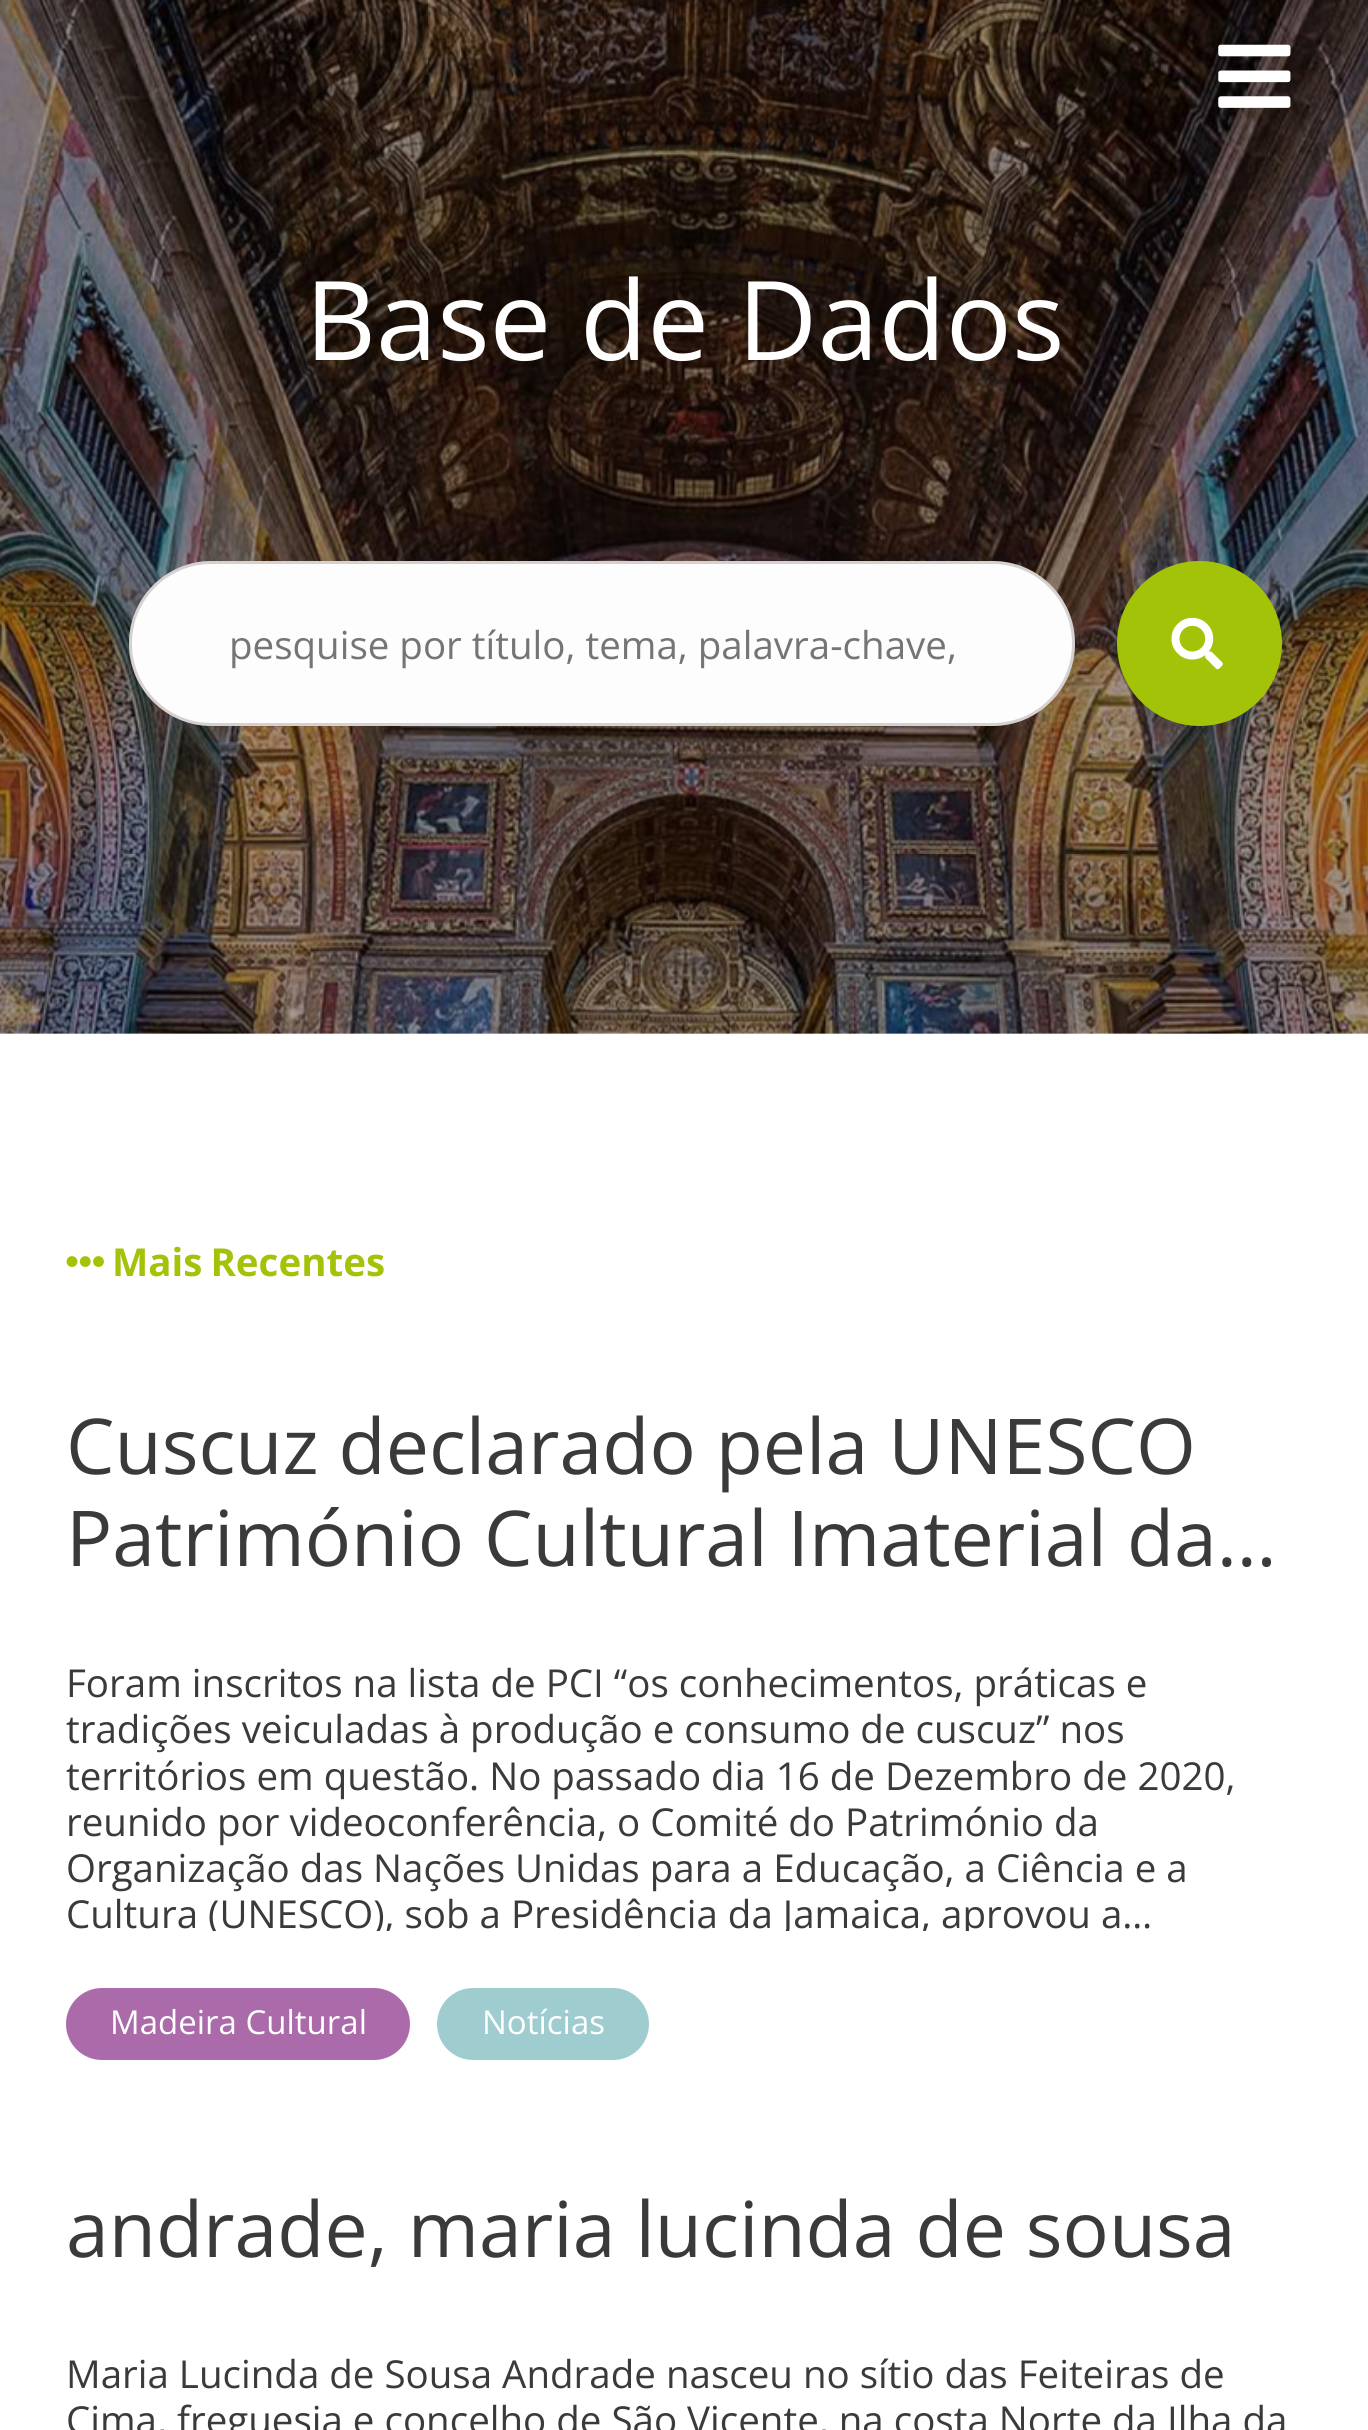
#include <cairo/cairo.h>
#include <math.h>
#include <stddef.h>

typedef struct { double x, y; const char *s; } line_t;
static cairo_t *cr;

static void rgb(unsigned color)
{
	cairo_set_source_rgb(cr, (color >> 16) / 255.0, (color >> 8 & 255) / 255.0, (color & 255) / 255.0);
}

static void tracked(double x, double y, const char *s, double letter, double word)
{
	cairo_move_to(cr, x, y);
	while (*s) {
		char ch[5] = {0};
		int n = 0;
		do ch[n++] = *s++; while ((*s & 0xC0) == 0x80);
		cairo_show_text(cr, ch);
		cairo_rel_move_to(cr, letter + word * (*ch == ' '), 0);
	}
}

static void rrect(double x, double y, double w, double h, double r)
{
	cairo_new_sub_path(cr);
	cairo_arc(cr, x + w - r, y + h - r, r, 0, M_PI / 2);
	cairo_arc(cr, x + r, y + h - r, r, M_PI / 2, M_PI);
	cairo_arc(cr, x + r, y + r, r, M_PI, 1.5 * M_PI);
	cairo_arc(cr, x + w - r, y + r, r, 1.5 * M_PI, 2 * M_PI);
	cairo_close_path(cr);
}

static void image(const char *path, double x, double y, double w, double h)
{
	cairo_surface_t *image = cairo_image_surface_create_from_png(path);
	cairo_save(cr);
	cairo_set_source_surface(cr, image, x, y);
	cairo_rectangle(cr, x, y, w, h);
	cairo_fill(cr);
	cairo_restore(cr);
	cairo_surface_destroy(image);
}

int main(void) {
	cairo_surface_t *surface = cairo_image_surface_create(CAIRO_FORMAT_RGB24, 1368, 2430);
	cr = cairo_create(surface);
	cairo_font_options_t *options = cairo_font_options_create();
	cairo_font_options_set_hint_metrics(options, CAIRO_HINT_METRICS_OFF);
	cairo_font_options_set_hint_style(options, CAIRO_HINT_STYLE_NONE);
	cairo_set_font_options(cr, options);
	cairo_set_miter_limit(cr, 4);
	rgb(0xffffff);
	cairo_paint(cr);
	image("img/2.png", 0, 0, 1368, 1034);
	image("img/1.png", 1218, 44, 73, 64);
	rgb(0xfdfdfd);
	rrect(129, 561, 946, 165, 82.5);
	cairo_fill(cr);
	rrect(130.5, 562.5, 943, 162, 81);
	cairo_set_source_rgba(cr, 0.333, 0.227, 0.227, 0.23);
	cairo_set_line_width(cr, 3);
	cairo_stroke(cr);
	rgb(0xa3c309);
	cairo_arc(cr, 1199.5, 643.5, 82.5, 0, 2 * M_PI);
	cairo_fill(cr);
	image("img/3.png", 1171, 617, 52, 53);
	image("img/4.png", 66, 1256, 38, 11);
	rgb(0xab6baa);
	rrect(66, 1988, 344, 72, 36);
	cairo_fill(cr);
	rgb(0x9fcccf);
	rrect(437, 1988, 212, 72, 36);
	cairo_fill(cr);
	cairo_select_font_face(cr, "Open Sans", CAIRO_FONT_SLANT_NORMAL, CAIRO_FONT_WEIGHT_NORMAL);
	cairo_set_font_size(cr, 110);
	rgb(0xffffff);
	cairo_move_to(cr, 305, 360);
	cairo_show_text(cr, "Base de Dados");
	cairo_set_font_size(cr, 38.5);
	rgb(0x757575);
	cairo_move_to(cr, 229, 659);
	cairo_show_text(cr, "pesquise por título, tema, palavra-chave,");
	cairo_select_font_face(cr, "Open Sans", CAIRO_FONT_SLANT_NORMAL, CAIRO_FONT_WEIGHT_BOLD);
	rgb(0xa3c309);
	tracked(112, 1276, "Mais Recentes", 0, -2);
	cairo_select_font_face(cr, "Open Sans", CAIRO_FONT_SLANT_NORMAL, CAIRO_FONT_WEIGHT_NORMAL);
	cairo_set_font_size(cr, 77);
	rgb(0x3a3a3a);
	cairo_move_to(cr, 66, 1474);
	cairo_show_text(cr, "Cuscuz declarado pela UNESCO");
	cairo_move_to(cr, 66, 1566);
	cairo_show_text(cr, "Património Cultural Imaterial da…");
	cairo_set_font_size(cr, 38.5);
	{
		static const line_t items[] = {
			{66, 1697, "Foram inscritos na lista de PCI “os conhecimentos, práticas e"},
			{66, 1743, "tradições veiculadas à produção e consumo de cuscuz” nos"},
			{66, 1790, "territórios em questão. No passado dia 16 de Dezembro de 2020,"},
			{66, 1836, "reunido por videoconferência, o Comité do Património da"},
			{66, 1882, "Organização das Nações Unidas para a Educação, a Ciência e a"},
		};
		for (size_t i = 0; i < sizeof items / sizeof *items; i++) {
			cairo_move_to(cr, items[i].x, items[i].y);
			cairo_show_text(cr, items[i].s);
		}
	}
	cairo_save(cr);
	cairo_rectangle(cr, 66, 1606, 1238, 325);
	cairo_clip(cr);
	cairo_move_to(cr, 66, 1928);
	cairo_show_text(cr, "Cultura (UNESCO), sob a Presidência da Jamaica, aprovou a…");
	cairo_restore(cr);
	cairo_set_font_size(cr, 33);
	rgb(0xffffff);
	cairo_move_to(cr, 110, 2034);
	cairo_show_text(cr, "Madeira Cultural");
	cairo_move_to(cr, 482, 2034);
	cairo_show_text(cr, "Notícias");
	cairo_set_font_size(cr, 77);
	rgb(0x3a3a3a);
	cairo_move_to(cr, 66, 2257);
	cairo_show_text(cr, "andrade, maria lucinda de sousa");
	cairo_set_font_size(cr, 38.5);
	cairo_move_to(cr, 66, 2388);
	cairo_show_text(cr, "Maria Lucinda de Sousa Andrade nasceu no sítio das Feiteiras de");
	cairo_move_to(cr, 66, 2434);
	cairo_show_text(cr, "Cima, freguesia e concelho de São Vicente, na costa Norte da Ilha da");
	cairo_surface_write_to_png(surface, "page.png");
	cairo_font_options_destroy(options);
	cairo_destroy(cr);
	cairo_surface_destroy(surface);
	return 0;
}
